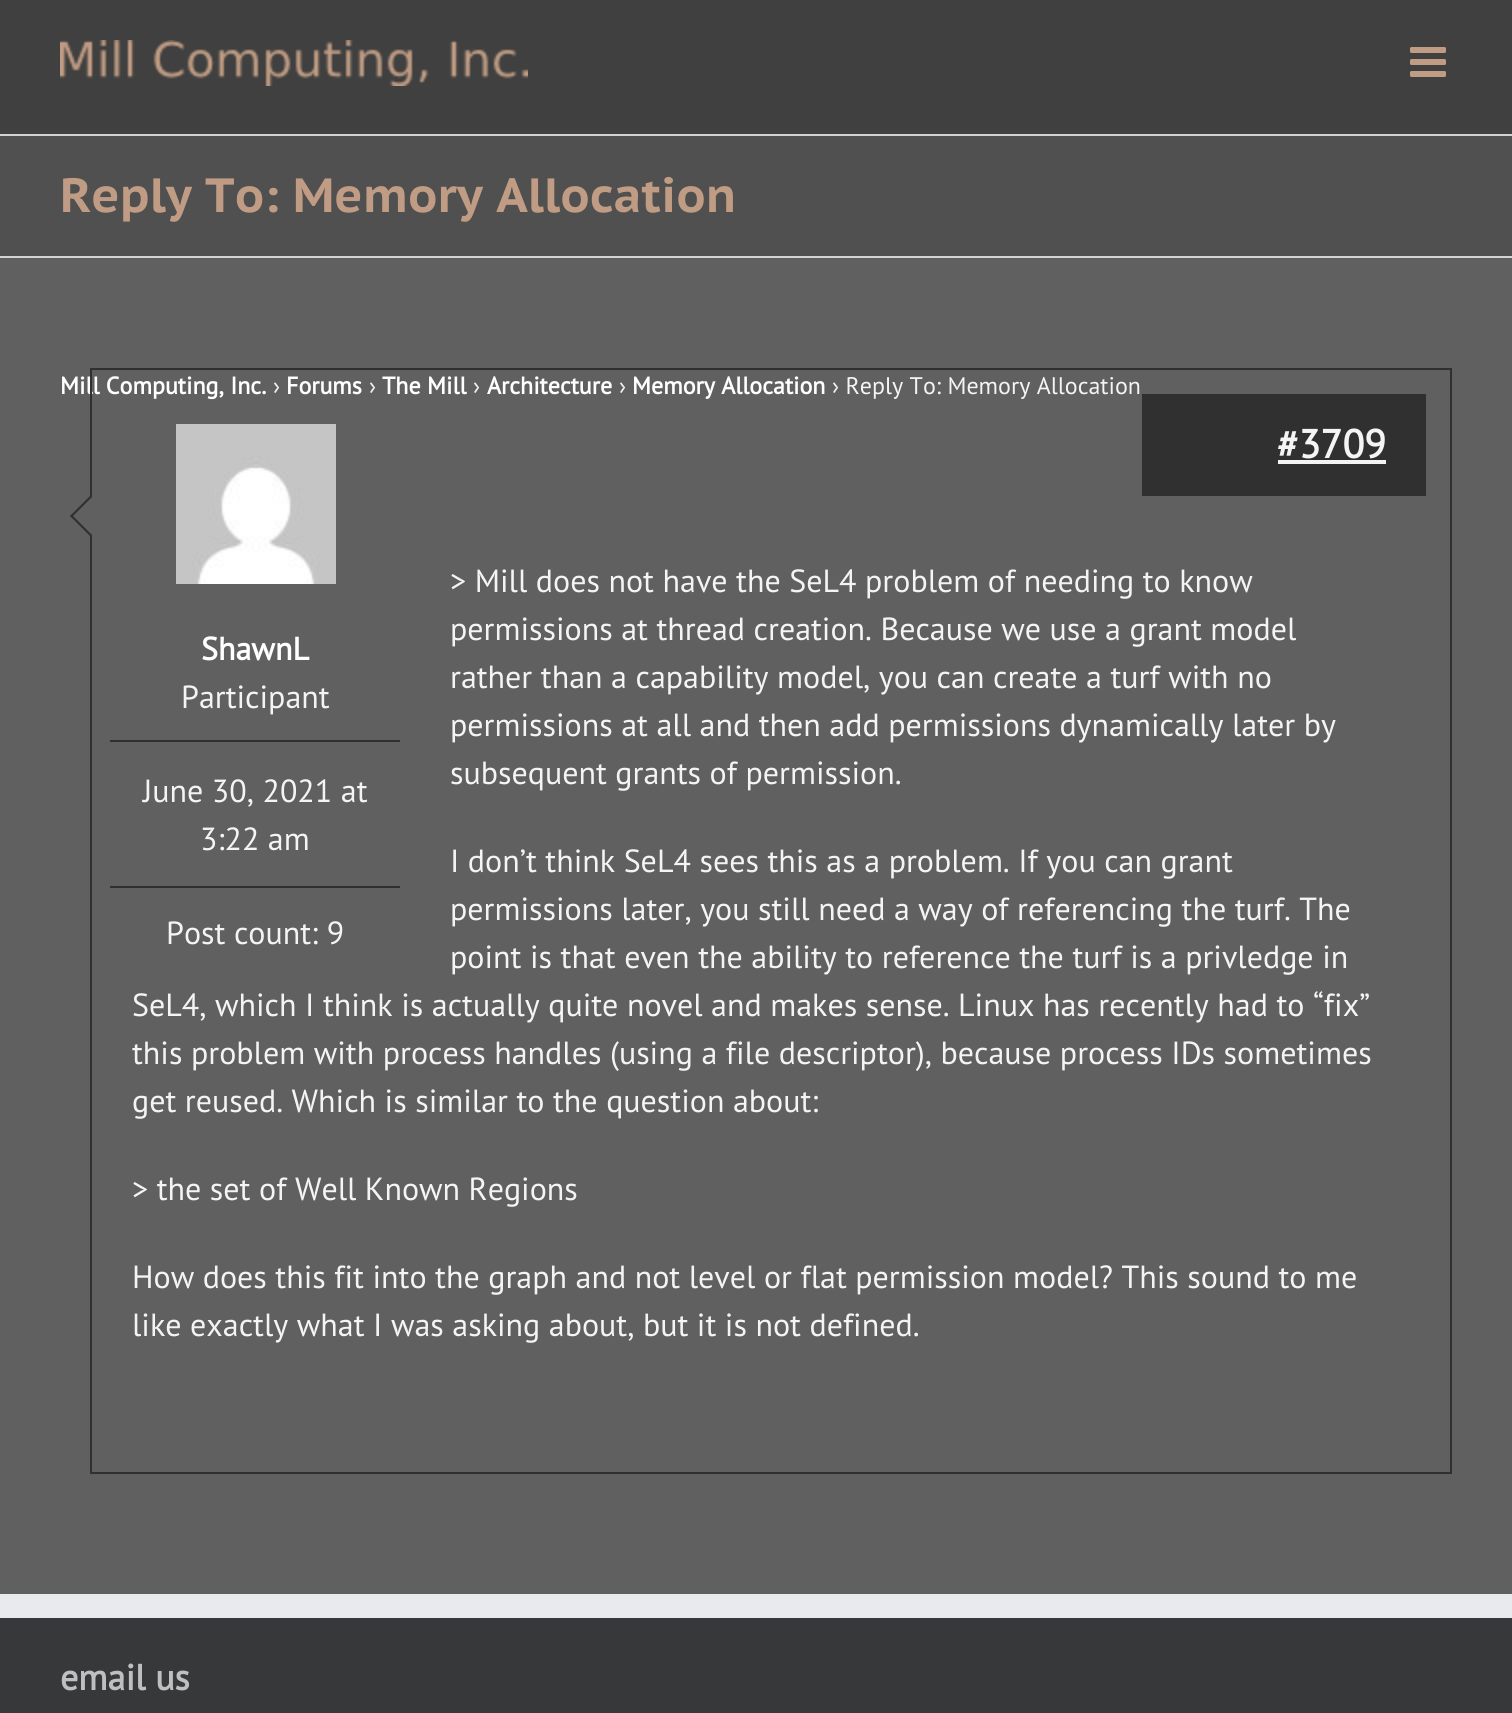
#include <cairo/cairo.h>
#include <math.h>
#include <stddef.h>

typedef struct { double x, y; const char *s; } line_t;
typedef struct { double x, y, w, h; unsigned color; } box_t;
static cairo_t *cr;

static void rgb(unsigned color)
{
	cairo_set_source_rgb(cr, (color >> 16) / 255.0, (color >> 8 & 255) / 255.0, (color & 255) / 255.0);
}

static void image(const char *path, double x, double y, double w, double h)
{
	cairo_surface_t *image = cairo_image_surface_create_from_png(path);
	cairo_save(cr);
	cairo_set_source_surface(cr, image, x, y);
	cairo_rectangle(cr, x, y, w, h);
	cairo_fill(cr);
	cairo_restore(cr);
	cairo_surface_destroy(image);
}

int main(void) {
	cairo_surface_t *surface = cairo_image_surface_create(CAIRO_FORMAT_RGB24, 1512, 1713);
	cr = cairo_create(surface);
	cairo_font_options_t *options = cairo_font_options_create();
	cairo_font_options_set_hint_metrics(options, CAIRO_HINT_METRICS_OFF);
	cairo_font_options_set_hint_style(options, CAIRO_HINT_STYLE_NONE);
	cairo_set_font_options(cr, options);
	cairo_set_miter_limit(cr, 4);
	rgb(0x606060);
	cairo_paint(cr);
	rgb(0x404040);
	cairo_rectangle(cr, 0, 0, 1512, 134);
	cairo_fill(cr);
	image("img/1.png", 60, 40, 468, 46);
	image("img/2.png", 1410, 47, 36, 30);
	{
		static const box_t items[] = {
			{0, 136, 1512, 120, 0x505050},
			{0, 134, 1512, 2, 0xd2d3d4},
			{0, 256, 1512, 2, 0xd2d3d4},
		};
		for (size_t i = 0; i < sizeof items / sizeof *items; i++) {
			rgb(items[i].color);
			cairo_rectangle(cr, items[i].x, items[i].y, items[i].w, items[i].h);
			cairo_fill(cr);
		}
	}
	image("img/3.png", 176, 424, 160, 160);
	{
		static const box_t items[] = {
			{110, 740, 290, 2, 0x303030},
			{110, 886, 290, 2, 0x303030},
			{0, 1618, 1512, 95, 0x363839},
			{0, 1594, 1512, 24, 0xe9eaee},
		};
		for (size_t i = 0; i < sizeof items / sizeof *items; i++) {
			rgb(items[i].color);
			cairo_rectangle(cr, items[i].x, items[i].y, items[i].w, items[i].h);
			cairo_fill(cr);
		}
	}
	cairo_select_font_face(cr, "PT Sans Caption", CAIRO_FONT_SLANT_NORMAL, CAIRO_FONT_WEIGHT_BOLD);
	cairo_set_font_size(cr, 48);
	rgb(0xbf9c83);
	cairo_move_to(cr, 60, 212);
	cairo_show_text(cr, "Reply To: Memory Allocation");
	cairo_select_font_face(cr, "PT Sans", CAIRO_FONT_SLANT_NORMAL, CAIRO_FONT_WEIGHT_BOLD);
	cairo_set_font_size(cr, 24);
	rgb(0xffffff);
	cairo_move_to(cr, 60, 394);
	cairo_show_text(cr, "Mill Computing, Inc.");
	cairo_select_font_face(cr, "PT Sans", CAIRO_FONT_SLANT_NORMAL, CAIRO_FONT_WEIGHT_NORMAL);
	rgb(0xf4f4f4);
	cairo_move_to(cr, 273, 394);
	cairo_show_text(cr, "›");
	cairo_select_font_face(cr, "PT Sans", CAIRO_FONT_SLANT_NORMAL, CAIRO_FONT_WEIGHT_BOLD);
	rgb(0xffffff);
	cairo_move_to(cr, 286, 394);
	cairo_show_text(cr, "Forums");
	cairo_select_font_face(cr, "PT Sans", CAIRO_FONT_SLANT_NORMAL, CAIRO_FONT_WEIGHT_NORMAL);
	rgb(0xf4f4f4);
	cairo_move_to(cr, 369, 394);
	cairo_show_text(cr, "›");
	cairo_select_font_face(cr, "PT Sans", CAIRO_FONT_SLANT_NORMAL, CAIRO_FONT_WEIGHT_BOLD);
	rgb(0xffffff);
	cairo_move_to(cr, 382, 394);
	cairo_show_text(cr, "The Mill");
	cairo_select_font_face(cr, "PT Sans", CAIRO_FONT_SLANT_NORMAL, CAIRO_FONT_WEIGHT_NORMAL);
	rgb(0xf4f4f4);
	cairo_move_to(cr, 473, 394);
	cairo_show_text(cr, "›");
	cairo_select_font_face(cr, "PT Sans", CAIRO_FONT_SLANT_NORMAL, CAIRO_FONT_WEIGHT_BOLD);
	rgb(0xffffff);
	cairo_move_to(cr, 487, 394);
	cairo_show_text(cr, "Architecture");
	cairo_select_font_face(cr, "PT Sans", CAIRO_FONT_SLANT_NORMAL, CAIRO_FONT_WEIGHT_NORMAL);
	rgb(0xf4f4f4);
	cairo_move_to(cr, 619, 394);
	cairo_show_text(cr, "›");
	cairo_select_font_face(cr, "PT Sans", CAIRO_FONT_SLANT_NORMAL, CAIRO_FONT_WEIGHT_BOLD);
	rgb(0xffffff);
	cairo_move_to(cr, 632, 394);
	cairo_show_text(cr, "Memory Allocation");
	cairo_select_font_face(cr, "PT Sans", CAIRO_FONT_SLANT_NORMAL, CAIRO_FONT_WEIGHT_NORMAL);
	rgb(0xf4f4f4);
	cairo_move_to(cr, 832, 394);
	cairo_show_text(cr, "› Reply To: Memory Allocation");
	cairo_rectangle(cr, 91, 369, 1360, 1104);
	rgb(0x303030);
	cairo_stroke(cr);
	cairo_rectangle(cr, 1142, 394, 284, 102);
	cairo_fill(cr);
	cairo_select_font_face(cr, "PT Sans", CAIRO_FONT_SLANT_NORMAL, CAIRO_FONT_WEIGHT_BOLD);
	cairo_set_font_size(cr, 40);
	rgb(0xf4f4f4);
	cairo_move_to(cr, 1277, 458);
	cairo_show_text(cr, "#3709");
	cairo_rectangle(cr, 1278, 460, 108, 4);
	cairo_fill(cr);
	rgb(0x606060);
	cairo_new_path(cr);
	cairo_move_to(cr, 90, 496);
	cairo_line_to(cr, 110, 516);
	cairo_line_to(cr, 90, 536);
	cairo_line_to(cr, 70, 516);
	cairo_close_path(cr);
	cairo_fill(cr);
	rgb(0x303030);
	cairo_new_path(cr);
	cairo_move_to(cr, 71.5, 514.5);
	cairo_line_to(cr, 91.5, 534.5);
	cairo_line_to(cr, 90, 536);
	cairo_line_to(cr, 70, 516);
	cairo_close_path(cr);
	cairo_fill(cr);
	cairo_new_path(cr);
	cairo_move_to(cr, 90, 496);
	cairo_line_to(cr, 91.5, 497.5);
	cairo_line_to(cr, 71.5, 517.5);
	cairo_line_to(cr, 70, 516);
	cairo_close_path(cr);
	cairo_fill(cr);
	cairo_select_font_face(cr, "PT Sans", CAIRO_FONT_SLANT_NORMAL, CAIRO_FONT_WEIGHT_NORMAL);
	cairo_set_font_size(cr, 32);
	rgb(0xf4f4f4);
	{
		static const line_t items[] = {
			{450, 592, "> Mill does not have the SeL4 problem of needing to know"},
			{450, 640, "permissions at thread creation. Because we use a grant model"},
			{450, 688, "rather than a capability model, you can create a turf with no"},
			{450, 736, "permissions at all and then add permissions dynamically later by"},
			{450, 784, "subsequent grants of permission."},
			{450, 872, "I don’t think SeL4 sees this as a problem. If you can grant"},
			{450, 920, "permissions later, you still need a way of referencing the turf. The"},
			{450, 968, "point is that even the ability to reference the turf is a privledge in"},
			{132, 1016, "SeL4, which I think is actually quite novel and makes sense. Linux has recently had to “fix”"},
			{132, 1064, "this problem with process handles (using a file descriptor), because process IDs sometimes"},
			{132, 1112, "get reused. Which is similar to the question about:"},
			{132, 1200, "> the set of Well Known Regions"},
			{132, 1288, "How does this fit into the graph and not level or flat permission model? This sound to me"},
			{132, 1336, "like exactly what I was asking about, but it is not defined."},
		};
		for (size_t i = 0; i < sizeof items / sizeof *items; i++) {
			cairo_move_to(cr, items[i].x, items[i].y);
			cairo_show_text(cr, items[i].s);
		}
	}
	cairo_select_font_face(cr, "PT Sans", CAIRO_FONT_SLANT_NORMAL, CAIRO_FONT_WEIGHT_BOLD);
	rgb(0xffffff);
	cairo_move_to(cr, 201, 660);
	cairo_show_text(cr, "ShawnL");
	cairo_select_font_face(cr, "PT Sans", CAIRO_FONT_SLANT_NORMAL, CAIRO_FONT_WEIGHT_NORMAL);
	rgb(0xf4f4f4);
	{
		static const line_t items[] = {
			{181, 708, "Participant"},
			{143, 802, "June 30, 2021 at"},
			{200, 850, "3:22 am"},
			{166, 944, "Post count: 9"},
		};
		for (size_t i = 0; i < sizeof items / sizeof *items; i++) {
			cairo_move_to(cr, items[i].x, items[i].y);
			cairo_show_text(cr, items[i].s);
		}
	}
	cairo_select_font_face(cr, "PT Sans", CAIRO_FONT_SLANT_NORMAL, CAIRO_FONT_WEIGHT_BOLD);
	cairo_set_font_size(cr, 36);
	rgb(0xbfbfbf);
	cairo_move_to(cr, 60, 1690);
	cairo_show_text(cr, "email us");
	cairo_surface_write_to_png(surface, "page.png");
	cairo_font_options_destroy(options);
	cairo_destroy(cr);
	cairo_surface_destroy(surface);
	return 0;
}
